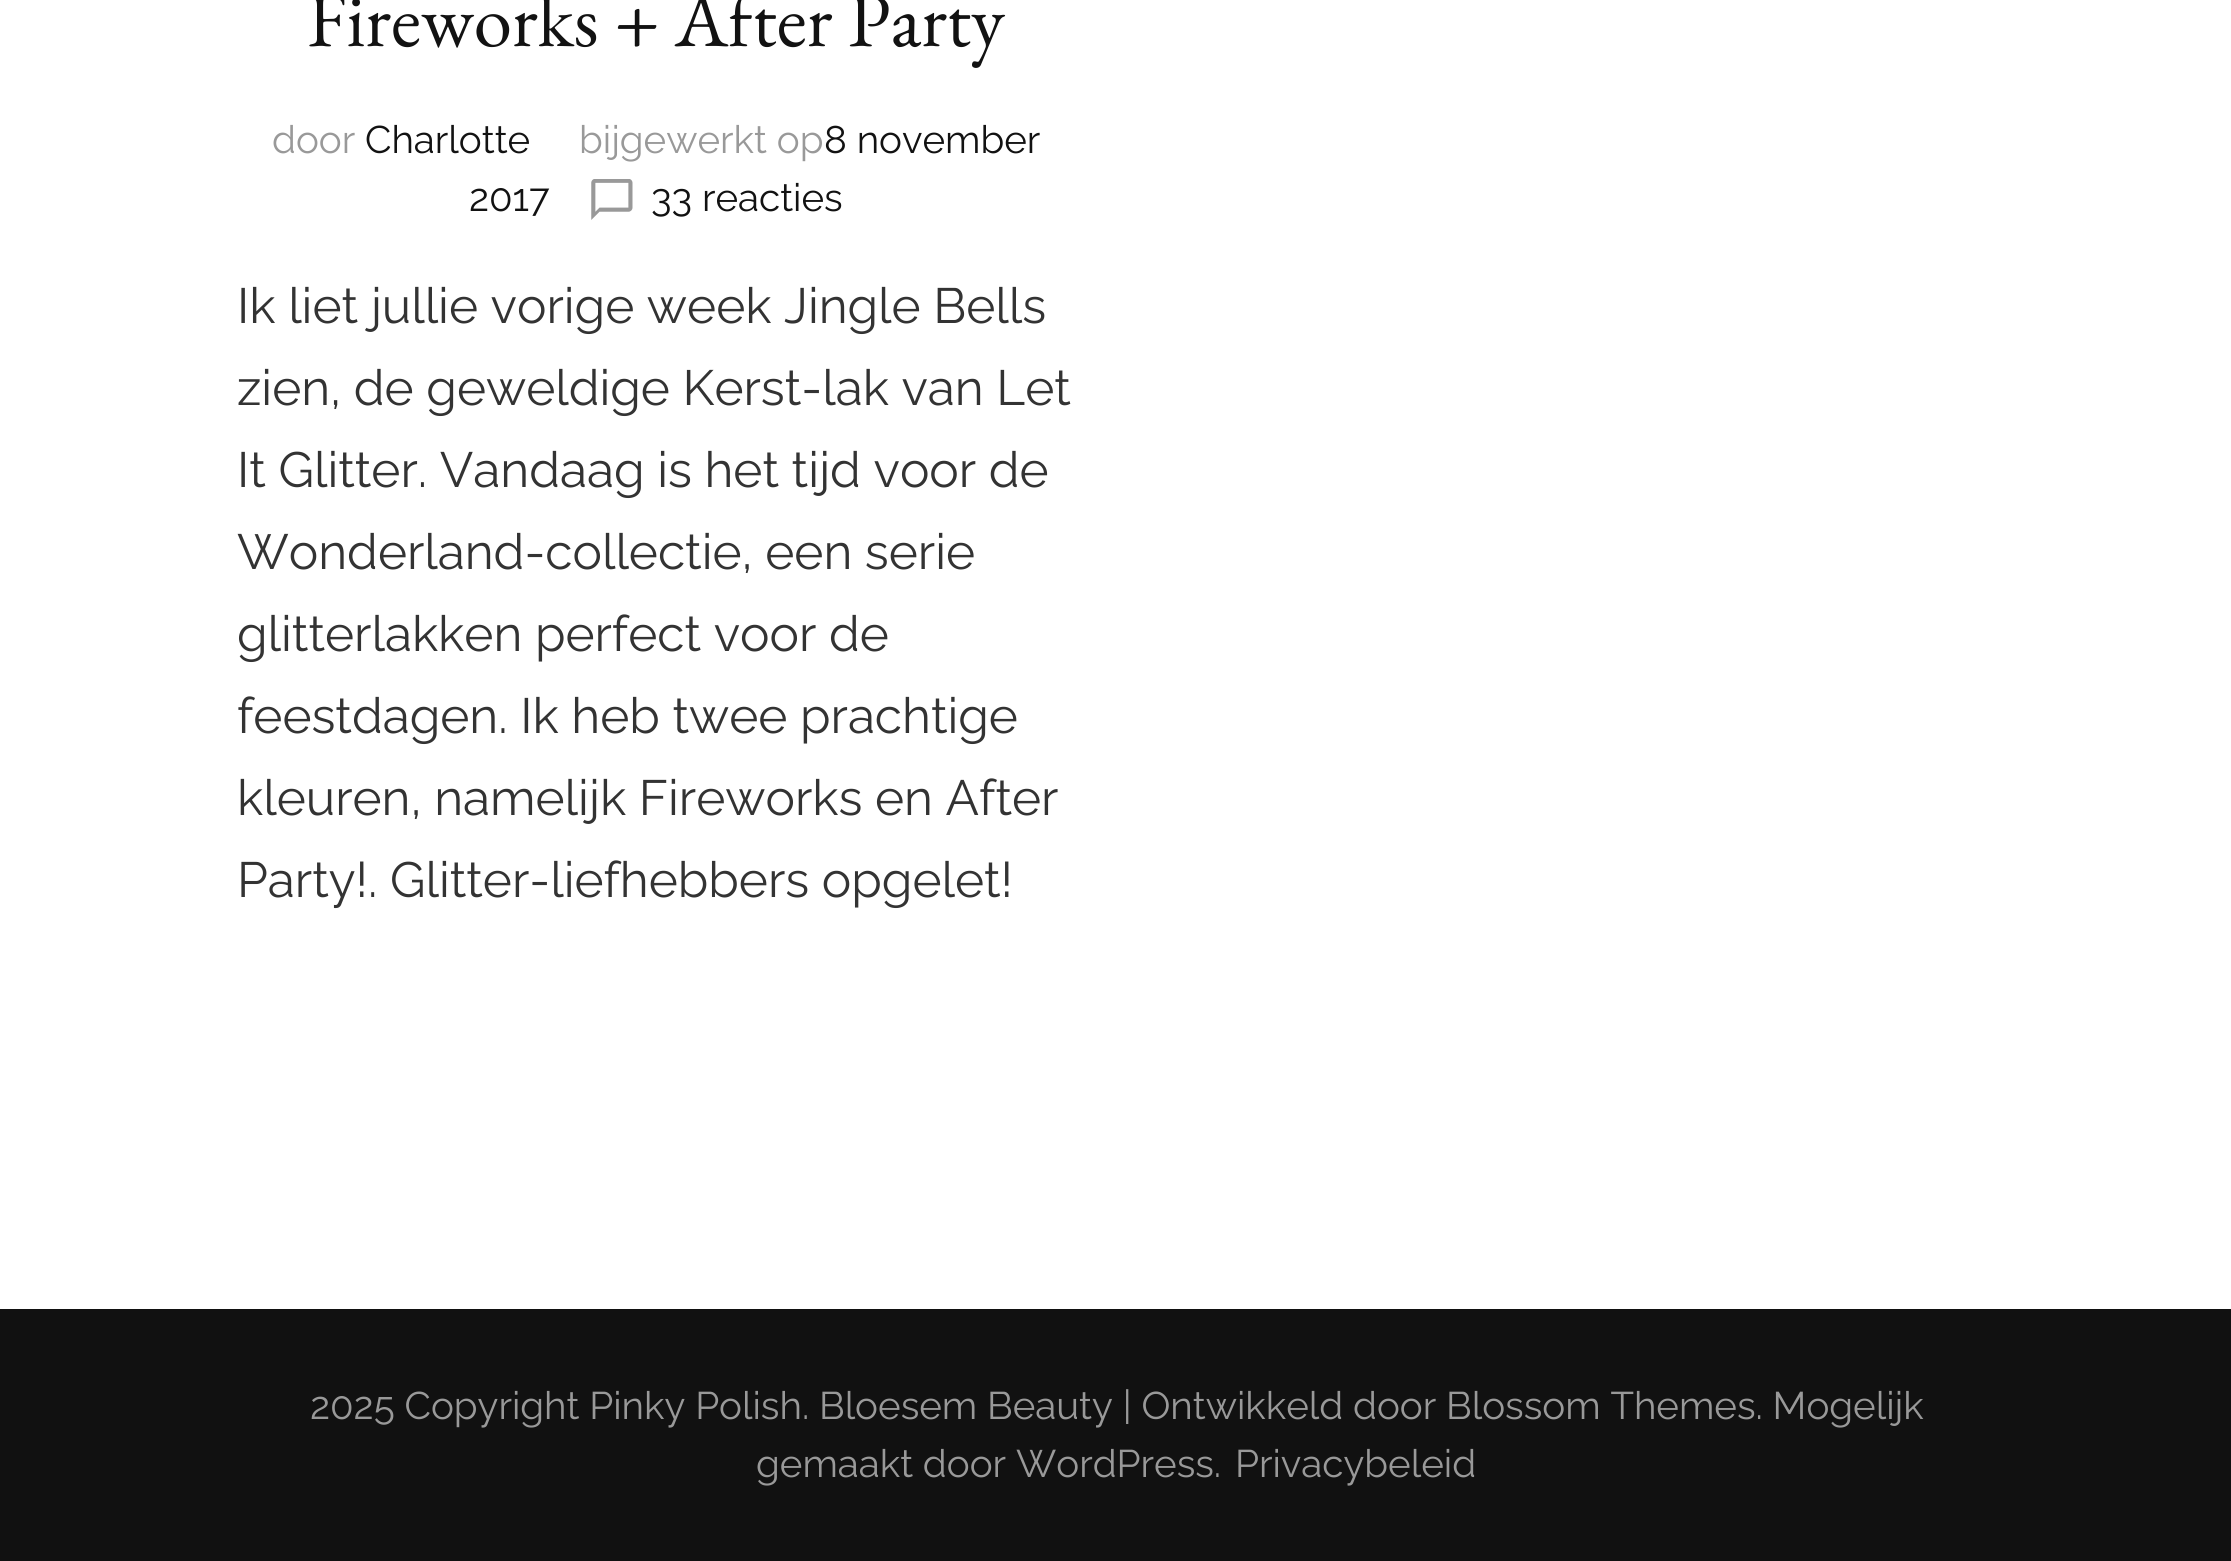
#include <cairo/cairo.h>
#include <math.h>
#include <stddef.h>

typedef struct { double x, y; const char *s; } line_t;
static cairo_t *cr;

static void rgb(unsigned color)
{
	cairo_set_source_rgb(cr, (color >> 16) / 255.0, (color >> 8 & 255) / 255.0, (color & 255) / 255.0);
}

static void image(const char *path, double x, double y, double w, double h)
{
	cairo_surface_t *image = cairo_image_surface_create_from_png(path);
	cairo_save(cr);
	cairo_set_source_surface(cr, image, x, y);
	cairo_rectangle(cr, x, y, w, h);
	cairo_fill(cr);
	cairo_restore(cr);
	cairo_surface_destroy(image);
}

int main(void) {
	cairo_surface_t *surface = cairo_image_surface_create(CAIRO_FORMAT_RGB24, 2231, 1561);
	cr = cairo_create(surface);
	cairo_font_options_t *options = cairo_font_options_create();
	cairo_font_options_set_hint_metrics(options, CAIRO_HINT_METRICS_OFF);
	cairo_font_options_set_hint_style(options, CAIRO_HINT_STYLE_NONE);
	cairo_set_font_options(cr, options);
	cairo_set_miter_limit(cr, 4);
	rgb(0xffffff);
	cairo_paint(cr);
	image("img/1.png", 591, 179, 42, 41);
	rgb(0x111111);
	cairo_rectangle(cr, 0, 1309, 2231, 252);
	cairo_fill(cr);
	cairo_select_font_face(cr, "EB Garamond", CAIRO_FONT_SLANT_NORMAL, CAIRO_FONT_WEIGHT_NORMAL);
	cairo_set_font_size(cr, 77);
	rgb(0x121212);
	cairo_move_to(cr, 307, 46);
	cairo_show_text(cr, "Fireworks + After Party");
	cairo_select_font_face(cr, "Raleway", CAIRO_FONT_SLANT_NORMAL, CAIRO_FONT_WEIGHT_NORMAL);
	cairo_set_font_size(cr, 38.5);
	rgb(0x999999);
	cairo_move_to(cr, 272, 153);
	cairo_show_text(cr, "door");
	rgb(0x121212);
	cairo_move_to(cr, 365, 153);
	cairo_show_text(cr, "Charlotte");
	rgb(0x999999);
	cairo_move_to(cr, 579, 153);
	cairo_show_text(cr, "bijgewerkt op");
	rgb(0x121212);
	{
		static const line_t items[] = {
			{824, 153, "8 november"},
			{469, 211, "2017"},
			{651, 211, "33 reacties"},
		};
		for (size_t i = 0; i < sizeof items / sizeof *items; i++) {
			cairo_move_to(cr, items[i].x, items[i].y);
			cairo_show_text(cr, items[i].s);
		}
	}
	cairo_set_font_size(cr, 49.5);
	rgb(0x333333);
	{
		static const line_t items[] = {
			{237, 323, "Ik liet jullie vorige week Jingle Bells"},
			{237, 405, "zien, de geweldige Kerst-lak van Let"},
			{237, 487, "It Glitter. Vandaag is het tijd voor de"},
			{237, 569, "Wonderland-collectie, een serie"},
			{237, 651, "glitterlakken perfect voor de"},
			{237, 733, "feestdagen. Ik heb twee prachtige"},
			{237, 815, "kleuren, namelijk Fireworks en After"},
			{237, 897, "Party!. Glitter-liefhebbers opgelet!"},
		};
		for (size_t i = 0; i < sizeof items / sizeof *items; i++) {
			cairo_move_to(cr, items[i].x, items[i].y);
			cairo_show_text(cr, items[i].s);
		}
	}
	cairo_set_font_size(cr, 38.5);
	rgb(0x999999);
	{
		static const line_t items[] = {
			{310, 1419, "2025 Copyright Pinky Polish. Bloesem Beauty | Ontwikkeld door Blossom Themes. Mogelijk"},
			{756, 1477, "gemaakt door WordPress."},
			{1235, 1477, "Privacybeleid"},
		};
		for (size_t i = 0; i < sizeof items / sizeof *items; i++) {
			cairo_move_to(cr, items[i].x, items[i].y);
			cairo_show_text(cr, items[i].s);
		}
	}
	cairo_surface_write_to_png(surface, "page.png");
	cairo_font_options_destroy(options);
	cairo_destroy(cr);
	cairo_surface_destroy(surface);
	return 0;
}
